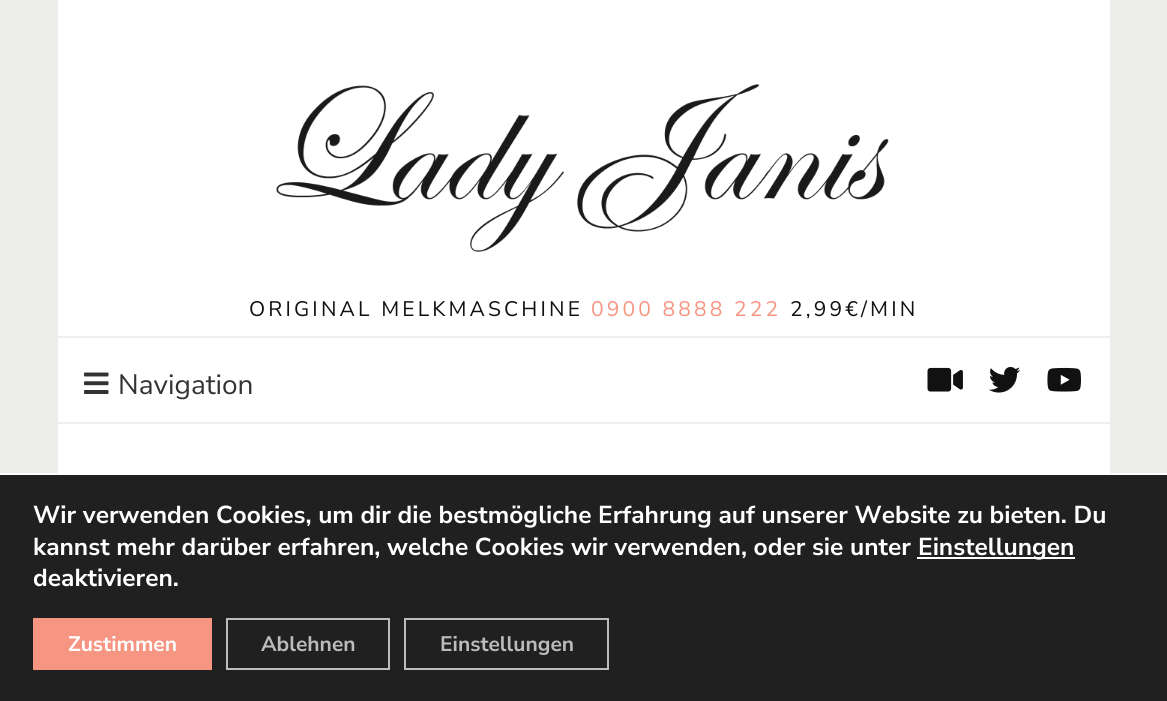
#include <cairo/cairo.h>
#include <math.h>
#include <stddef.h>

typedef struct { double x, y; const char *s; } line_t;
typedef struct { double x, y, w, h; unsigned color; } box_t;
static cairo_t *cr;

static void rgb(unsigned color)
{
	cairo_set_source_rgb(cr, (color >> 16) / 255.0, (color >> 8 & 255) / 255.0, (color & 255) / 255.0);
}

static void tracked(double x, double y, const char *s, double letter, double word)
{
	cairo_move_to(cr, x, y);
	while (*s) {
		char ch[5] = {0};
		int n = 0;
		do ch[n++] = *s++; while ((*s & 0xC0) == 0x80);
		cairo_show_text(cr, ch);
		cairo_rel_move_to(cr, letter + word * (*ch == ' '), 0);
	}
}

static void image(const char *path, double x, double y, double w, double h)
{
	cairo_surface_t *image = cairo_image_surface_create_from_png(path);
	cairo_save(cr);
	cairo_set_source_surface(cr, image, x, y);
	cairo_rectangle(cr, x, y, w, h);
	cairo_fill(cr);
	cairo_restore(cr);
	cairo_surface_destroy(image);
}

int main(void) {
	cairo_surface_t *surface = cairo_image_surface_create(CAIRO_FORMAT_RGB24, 1167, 701);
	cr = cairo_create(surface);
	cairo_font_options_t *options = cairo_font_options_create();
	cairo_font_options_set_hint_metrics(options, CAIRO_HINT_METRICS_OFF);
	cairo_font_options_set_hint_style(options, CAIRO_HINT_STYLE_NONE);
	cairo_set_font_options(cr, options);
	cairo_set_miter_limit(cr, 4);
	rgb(0xededea);
	cairo_paint(cr);
	rgb(0xffffff);
	cairo_rectangle(cr, 58, 0, 1052, 473);
	cairo_fill(cr);
	image("img/1.png", 276, 84, 613, 168);
	rgb(0xeeeeee);
	cairo_rectangle(cr, 58, 336, 1052, 2);
	cairo_fill(cr);
	cairo_rectangle(cr, 58, 422, 1052, 2);
	cairo_fill(cr);
	image("img/2.png", 84, 372, 25, 22);
	image("img/3.png", 927, 367, 36, 25);
	image("img/4.png", 989, 367, 32, 26);
	image("img/5.png", 1047, 367, 34, 25);
	{
		static const box_t items[] = {
			{0, 475, 1167, 226, 0x202020},
			{0, 473, 1167, 2, 0xffffff},
			{917, 557, 158, 2, 0xffffff},
			{33, 618, 179, 52, 0xf69581},
		};
		for (size_t i = 0; i < sizeof items / sizeof *items; i++) {
			rgb(items[i].color);
			cairo_rectangle(cr, items[i].x, items[i].y, items[i].w, items[i].h);
			cairo_fill(cr);
		}
	}
	cairo_rectangle(cr, 227, 619, 162, 50);
	rgb(0xbcbcbc);
	cairo_stroke(cr);
	cairo_rectangle(cr, 405, 619, 203, 50);
	cairo_stroke(cr);
	cairo_select_font_face(cr, "Nunito Sans", CAIRO_FONT_SLANT_NORMAL, CAIRO_FONT_WEIGHT_NORMAL);
	cairo_set_font_size(cr, 21);
	rgb(0x111111);
	tracked(249, 316, "ORIGINAL MELKMASCHINE", 3.15, 0);
	rgb(0xf69581);
	tracked(591, 316, "0900 8888 222", 3.15, 0);
	rgb(0x111111);
	tracked(790, 316, "2,99€/MIN", 3.15, 0);
	cairo_set_font_size(cr, 28);
	rgb(0x333333);
	cairo_move_to(cr, 118, 394);
	cairo_show_text(cr, "Navigation");
	cairo_select_font_face(cr, "Nunito Sans", CAIRO_FONT_SLANT_NORMAL, CAIRO_FONT_WEIGHT_BOLD);
	cairo_set_font_size(cr, 24.5);
	rgb(0xffffff);
	{
		static const line_t items[] = {
			{33, 523, "Wir verwenden Cookies, um dir die bestmögliche Erfahrung auf unserer Website zu bieten. Du"},
			{33, 555, "kannst mehr darüber erfahren, welche Cookies wir verwenden, oder sie unter"},
			{918, 555, "Einstellungen"},
			{33, 586, "deaktivieren."},
		};
		for (size_t i = 0; i < sizeof items / sizeof *items; i++) {
			cairo_move_to(cr, items[i].x, items[i].y);
			cairo_show_text(cr, items[i].s);
		}
	}
	cairo_set_font_size(cr, 21);
	cairo_move_to(cr, 68, 651);
	cairo_show_text(cr, "Zustimmen");
	rgb(0xbcbcbc);
	cairo_move_to(cr, 261, 651);
	cairo_show_text(cr, "Ablehnen");
	cairo_move_to(cr, 440, 651);
	cairo_show_text(cr, "Einstellungen");
	cairo_surface_write_to_png(surface, "page.png");
	cairo_font_options_destroy(options);
	cairo_destroy(cr);
	cairo_surface_destroy(surface);
	return 0;
}
